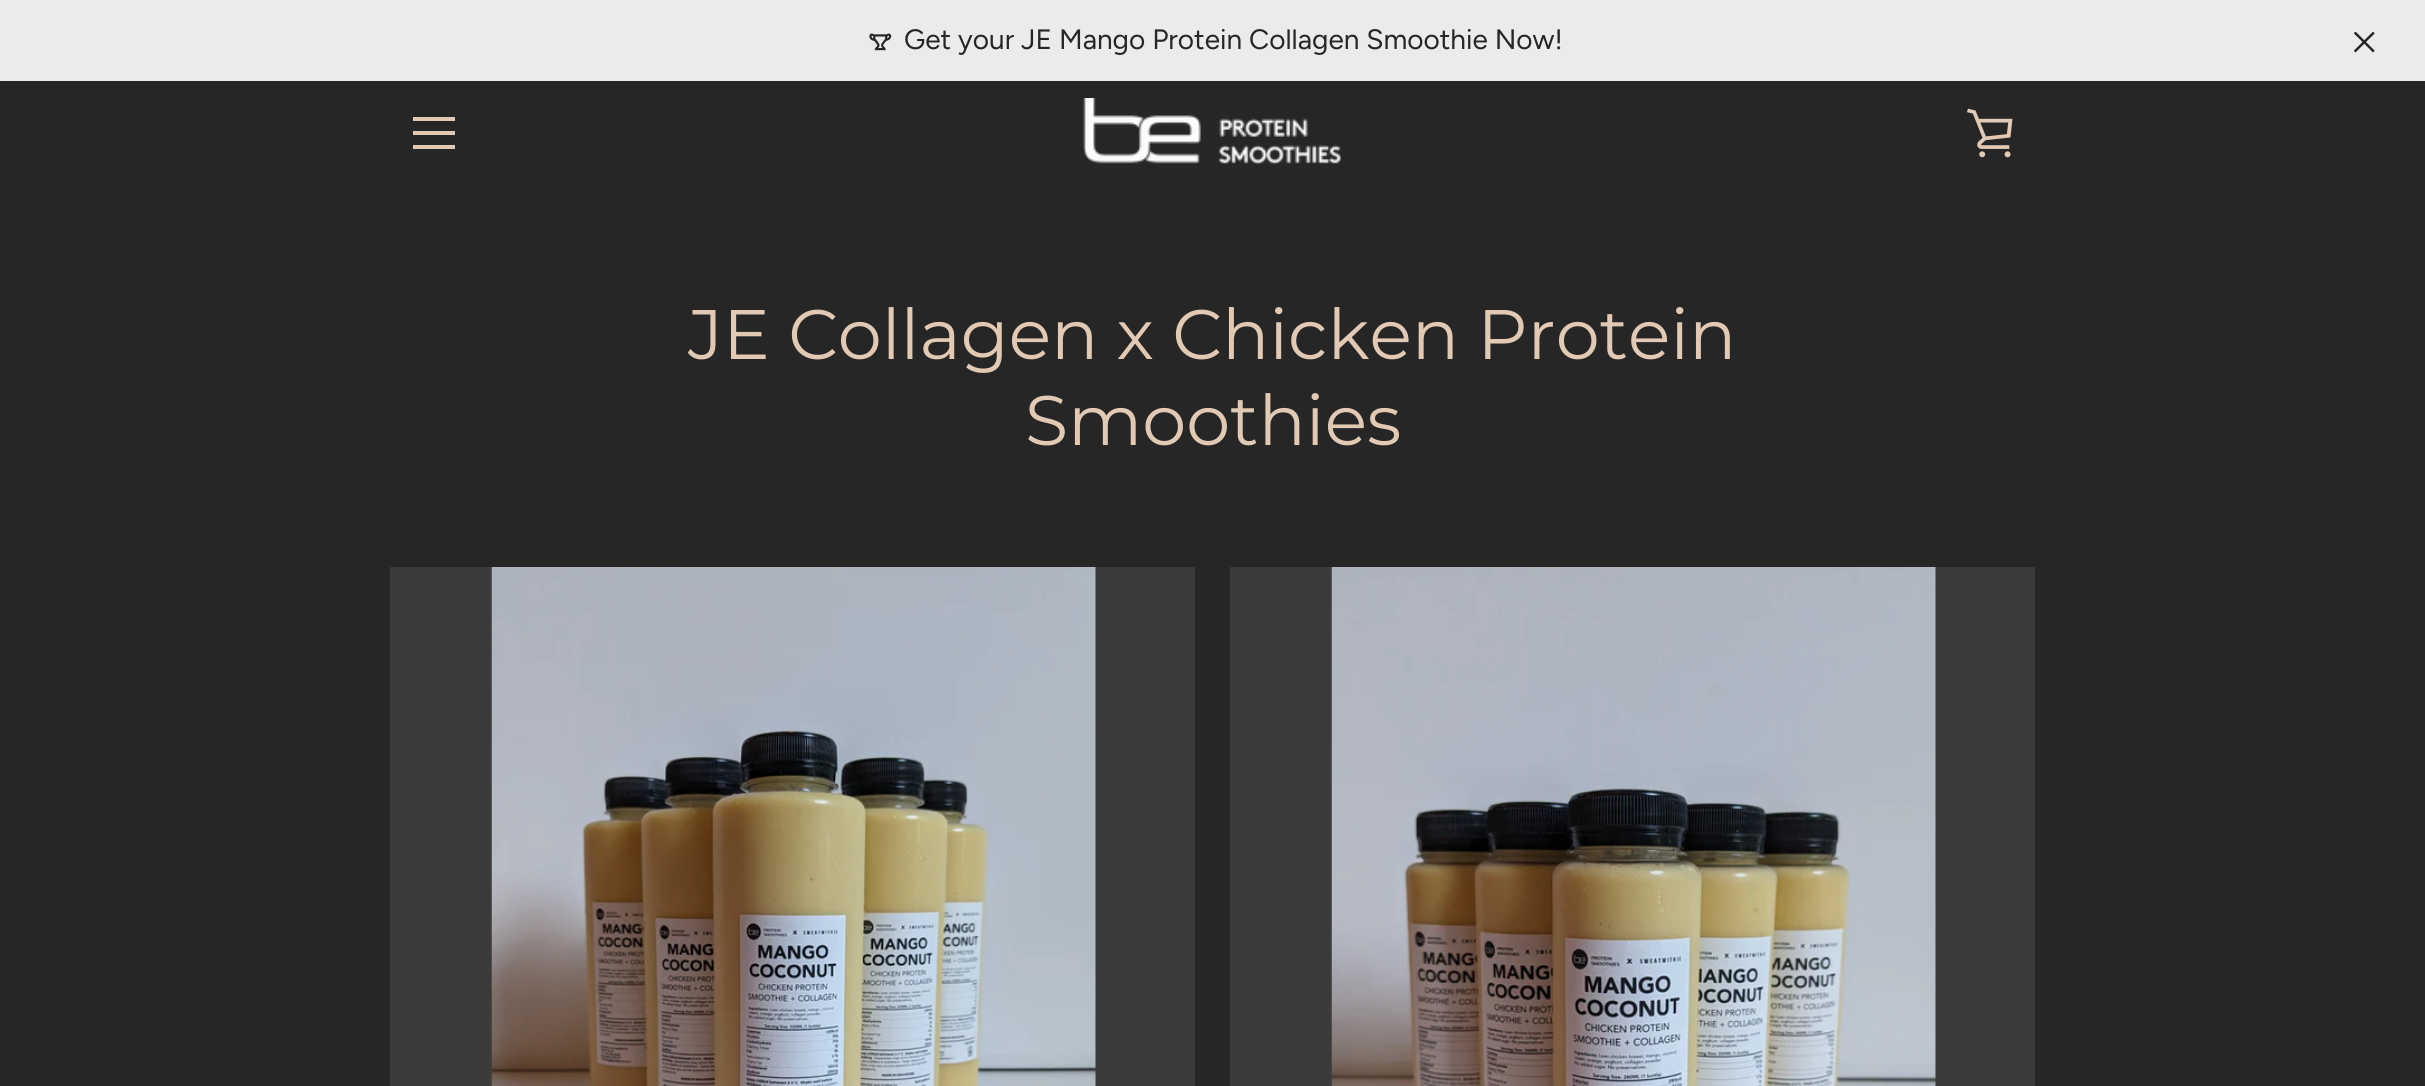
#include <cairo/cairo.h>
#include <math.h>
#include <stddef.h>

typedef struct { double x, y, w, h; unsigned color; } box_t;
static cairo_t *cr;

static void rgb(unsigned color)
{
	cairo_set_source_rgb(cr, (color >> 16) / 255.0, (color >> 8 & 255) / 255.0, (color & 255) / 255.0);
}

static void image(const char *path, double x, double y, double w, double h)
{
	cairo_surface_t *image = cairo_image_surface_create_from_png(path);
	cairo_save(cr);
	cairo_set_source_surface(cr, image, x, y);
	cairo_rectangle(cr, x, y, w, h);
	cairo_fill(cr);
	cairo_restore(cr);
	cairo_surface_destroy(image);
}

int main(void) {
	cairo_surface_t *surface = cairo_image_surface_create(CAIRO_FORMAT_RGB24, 2425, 1086);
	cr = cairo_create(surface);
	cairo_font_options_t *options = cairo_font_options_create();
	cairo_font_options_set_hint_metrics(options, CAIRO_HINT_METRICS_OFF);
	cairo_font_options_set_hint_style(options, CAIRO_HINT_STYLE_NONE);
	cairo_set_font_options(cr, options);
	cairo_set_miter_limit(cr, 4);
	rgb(0x262626);
	cairo_paint(cr);
	rgb(0xebebeb);
	cairo_rectangle(cr, 0, 0, 2425, 81);
	cairo_fill(cr);
	image("img/1.png", 869, 33, 23, 18);
	image("img/2.png", 2354, 32, 21, 21);
	{
		static const box_t items[] = {
			{413, 117, 42, 4, 0xe1c9b4},
			{413, 131, 42, 4, 0xe1c9b4},
			{413, 145, 42, 4, 0xe1c9b4},
		};
		for (size_t i = 0; i < sizeof items / sizeof *items; i++) {
			rgb(items[i].color);
			cairo_rectangle(cr, items[i].x, items[i].y, items[i].w, items[i].h);
			cairo_fill(cr);
		}
	}
	image("img/3.png", 1083, 98, 258, 67);
	image("img/4.png", 1967, 108, 46, 50);
	rgb(0x3b3b3b);
	cairo_rectangle(cr, 390, 567, 805, 519);
	cairo_fill(cr);
	image("img/5.png", 491, 567, 605, 519);
	cairo_rectangle(cr, 1230, 567, 805, 519);
	cairo_fill(cr);
	image("img/6.png", 1331, 567, 605, 519);
	cairo_select_font_face(cr, "Figtree", CAIRO_FONT_SLANT_NORMAL, CAIRO_FONT_WEIGHT_NORMAL);
	cairo_set_font_size(cr, 28);
	rgb(0x262626);
	cairo_move_to(cr, 904, 49);
	cairo_show_text(cr, "Get your JE Mango Protein Collagen Smoothie Now!");
	cairo_select_font_face(cr, "Montserrat", CAIRO_FONT_SLANT_NORMAL, CAIRO_FONT_WEIGHT_NORMAL);
	cairo_set_font_size(cr, 70);
	rgb(0xe1c9b4);
	cairo_move_to(cr, 688, 359);
	cairo_show_text(cr, "JE Collagen x Chicken Protein");
	cairo_move_to(cr, 1025, 445);
	cairo_show_text(cr, "Smoothies");
	cairo_surface_write_to_png(surface, "page.png");
	cairo_font_options_destroy(options);
	cairo_destroy(cr);
	cairo_surface_destroy(surface);
	return 0;
}
